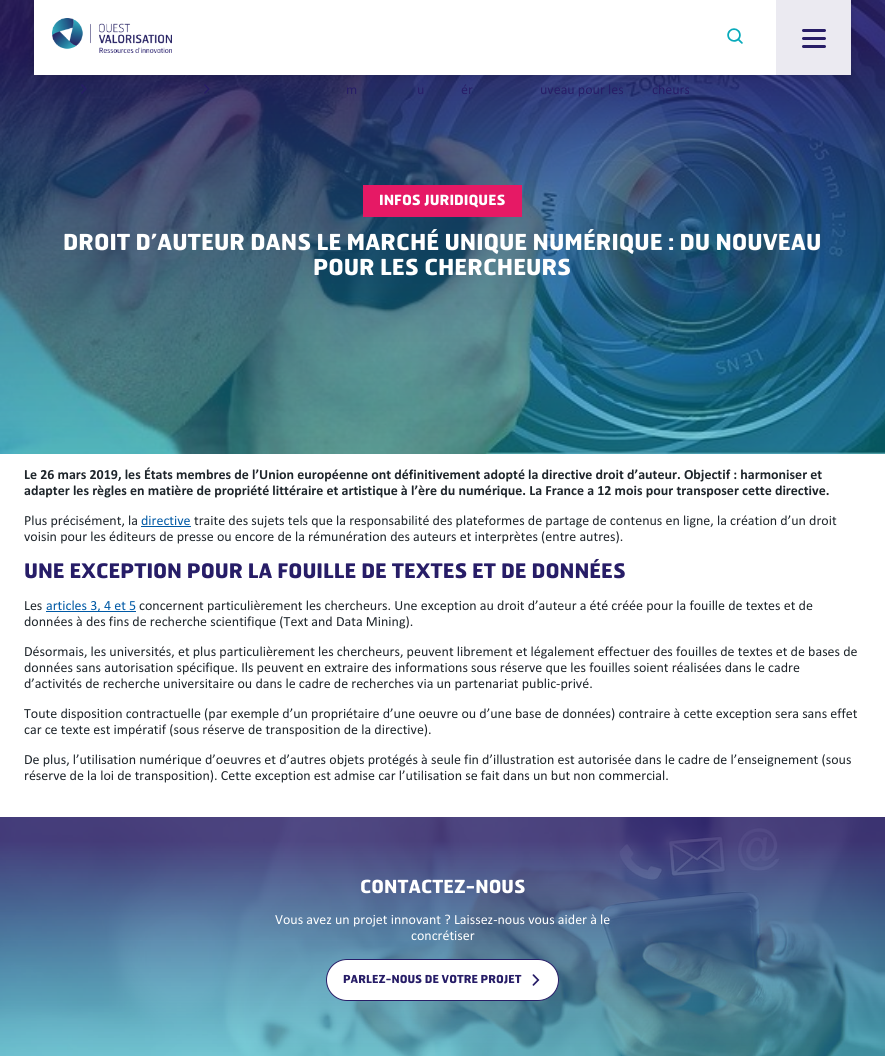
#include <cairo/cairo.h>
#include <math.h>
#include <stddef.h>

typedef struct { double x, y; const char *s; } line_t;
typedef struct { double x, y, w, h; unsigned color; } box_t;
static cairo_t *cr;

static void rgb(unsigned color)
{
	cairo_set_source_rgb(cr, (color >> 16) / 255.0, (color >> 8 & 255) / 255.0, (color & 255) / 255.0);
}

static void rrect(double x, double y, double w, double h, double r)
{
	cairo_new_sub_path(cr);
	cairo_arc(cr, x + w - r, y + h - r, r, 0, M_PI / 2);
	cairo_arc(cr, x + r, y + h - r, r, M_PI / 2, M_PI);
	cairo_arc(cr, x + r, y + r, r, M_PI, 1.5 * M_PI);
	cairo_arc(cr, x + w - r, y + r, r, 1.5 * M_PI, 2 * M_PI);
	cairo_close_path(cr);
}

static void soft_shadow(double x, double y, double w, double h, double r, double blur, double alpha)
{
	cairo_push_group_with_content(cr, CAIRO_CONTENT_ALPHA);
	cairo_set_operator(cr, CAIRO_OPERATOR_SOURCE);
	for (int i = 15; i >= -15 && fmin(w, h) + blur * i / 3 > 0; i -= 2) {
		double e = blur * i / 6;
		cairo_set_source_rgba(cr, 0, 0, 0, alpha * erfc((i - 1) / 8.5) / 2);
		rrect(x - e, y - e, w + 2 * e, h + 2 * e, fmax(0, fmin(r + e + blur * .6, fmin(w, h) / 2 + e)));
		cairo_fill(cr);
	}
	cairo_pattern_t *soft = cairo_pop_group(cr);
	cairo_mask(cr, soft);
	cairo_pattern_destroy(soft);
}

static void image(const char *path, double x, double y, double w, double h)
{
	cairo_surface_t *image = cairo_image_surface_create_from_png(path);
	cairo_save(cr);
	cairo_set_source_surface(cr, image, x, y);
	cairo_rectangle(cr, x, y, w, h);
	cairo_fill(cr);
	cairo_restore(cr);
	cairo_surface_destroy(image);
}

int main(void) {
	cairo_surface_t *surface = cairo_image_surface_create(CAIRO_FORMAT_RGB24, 885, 1056);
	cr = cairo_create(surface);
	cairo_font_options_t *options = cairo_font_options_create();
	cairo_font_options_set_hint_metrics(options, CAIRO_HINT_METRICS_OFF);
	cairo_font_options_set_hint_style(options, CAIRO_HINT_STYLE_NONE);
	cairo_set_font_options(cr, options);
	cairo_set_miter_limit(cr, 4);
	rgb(0xffffff);
	cairo_paint(cr);
	image("img/5.png", 0, 0, 885, 454);
	image("img/3.png", 81, 84, 6, 10);
	image("img/4.png", 204, 84, 6, 10);
	rgb(0x000000);
	soft_shadow(34, 0, 817, 75, 0, 4, 0.16);
	rgb(0xffffff);
	cairo_rectangle(cr, 34, 0, 742, 75);
	cairo_fill(cr);
	image("img/1.png", 727, 28, 16, 16);
	rgb(0xebeaf1);
	cairo_rectangle(cr, 776, 0, 75, 75);
	cairo_fill(cr);
	rgb(0x271d67);
	rrect(802, 37, 24, 3, 1.5);
	cairo_fill(cr);
	rrect(802, 29, 24, 3, 1.5);
	cairo_fill(cr);
	rrect(802, 45, 24, 3, 1.5);
	cairo_fill(cr);
	image("img/2.png", 52, 18, 120, 35);
	{
		static const box_t items[] = {
			{363, 185, 159, 32, 0xe61965},
			{141, 526, 50, 1, 0x0059a5},
			{46, 611, 90, 1, 0x0059a5},
		};
		for (size_t i = 0; i < sizeof items / sizeof *items; i++) {
			rgb(items[i].color);
			cairo_rectangle(cr, items[i].x, items[i].y, items[i].w, items[i].h);
			cairo_fill(cr);
		}
	}
	image("img/6.png", 0, 817, 885, 239);
	rgb(0xffffff);
	rrect(326.5, 959.5, 232, 41, 20.5);
	cairo_fill_preserve(cr);
	rgb(0x271d67);
	cairo_set_line_width(cr, 1);
	cairo_stroke(cr);
	image("img/7.png", 532, 974, 8, 12);
	cairo_select_font_face(cr, "Calibri", CAIRO_FONT_SLANT_NORMAL, CAIRO_FONT_WEIGHT_NORMAL);
	cairo_set_font_size(cr, 14);
	{
		static const line_t items[] = {
			{346, 94, "m"},
			{417, 94, "u"},
			{461, 94, "ér"},
			{540, 94, "uveau pour les"},
			{652, 94, "cheurs"},
		};
		for (size_t i = 0; i < sizeof items / sizeof *items; i++) {
			cairo_move_to(cr, items[i].x, items[i].y);
			cairo_show_text(cr, items[i].s);
		}
	}
	cairo_select_font_face(cr, "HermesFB", CAIRO_FONT_SLANT_NORMAL, CAIRO_FONT_WEIGHT_BOLD);
	rgb(0xffffff);
	cairo_move_to(cr, 379, 205);
	cairo_show_text(cr, "INFOS JURIDIQUES");
	cairo_set_font_size(cr, 22);
	cairo_move_to(cr, 63, 250);
	cairo_show_text(cr, "DROIT D’AUTEUR DANS LE MARCHÉ UNIQUE NUMÉRIQUE : DU NOUVEAU");
	cairo_move_to(cr, 313, 275);
	cairo_show_text(cr, "POUR LES CHERCHEURS");
	cairo_select_font_face(cr, "Calibri", CAIRO_FONT_SLANT_NORMAL, CAIRO_FONT_WEIGHT_BOLD);
	cairo_set_font_size(cr, 14);
	rgb(0x1e252b);
	cairo_move_to(cr, 24, 479);
	cairo_show_text(cr, "Le 26 mars 2019, les États membres de l’Union européenne ont définitivement adopté la directive droit d’auteur. Objectif : harmoniser et");
	cairo_move_to(cr, 24, 495);
	cairo_show_text(cr, "adapter les règles en matière de propriété littéraire et artistique à l’ère du numérique. La France a 12 mois pour transposer cette directive.");
	cairo_select_font_face(cr, "Calibri", CAIRO_FONT_SLANT_NORMAL, CAIRO_FONT_WEIGHT_NORMAL);
	cairo_move_to(cr, 24, 525);
	cairo_show_text(cr, "Plus précisément, la");
	rgb(0x0059a5);
	cairo_move_to(cr, 141, 525);
	cairo_show_text(cr, "directive");
	rgb(0x1e252b);
	cairo_move_to(cr, 194, 525);
	cairo_show_text(cr, "traite des sujets tels que la responsabilité des plateformes de partage de contenus en ligne, la création d’un droit");
	cairo_move_to(cr, 24, 541);
	cairo_show_text(cr, "voisin pour les éditeurs de presse ou encore de la rémunération des auteurs et interprètes (entre autres).");
	cairo_select_font_face(cr, "HermesFB", CAIRO_FONT_SLANT_NORMAL, CAIRO_FONT_WEIGHT_BOLD);
	cairo_set_font_size(cr, 20);
	rgb(0x271d67);
	cairo_move_to(cr, 24, 578);
	cairo_show_text(cr, "UNE EXCEPTION POUR LA FOUILLE DE TEXTES ET DE DONNÉES");
	cairo_select_font_face(cr, "Calibri", CAIRO_FONT_SLANT_NORMAL, CAIRO_FONT_WEIGHT_NORMAL);
	cairo_set_font_size(cr, 14);
	rgb(0x1e252b);
	cairo_move_to(cr, 24, 610);
	cairo_show_text(cr, "Les");
	rgb(0x0059a5);
	cairo_move_to(cr, 46, 610);
	cairo_show_text(cr, "articles 3, 4 et 5");
	rgb(0x1e252b);
	{
		static const line_t items[] = {
			{139, 610, "concernent particulièrement les chercheurs. Une exception au droit d’auteur a été créée pour la fouille de textes et de"},
			{24, 626, "données à des fins de recherche scientifique (Text and Data Mining)."},
			{24, 656, "Désormais, les universités, et plus particulièrement les chercheurs, peuvent librement et légalement effectuer des fouilles de textes et de bases de"},
			{24, 672, "données sans autorisation spécifique. Ils peuvent en extraire des informations sous réserve que les fouilles soient réalisées dans le cadre"},
			{24, 688, "d’activités de recherche universitaire ou dans le cadre de recherches via un partenariat public-privé."},
			{24, 718, "Toute disposition contractuelle (par exemple d’un propriétaire d’une oeuvre ou d’une base de données) contraire à cette exception sera sans effet"},
			{24, 734, "car ce texte est impératif (sous réserve de transposition de la directive)."},
			{24, 764, "De plus, l’utilisation numérique d’oeuvres et d’autres objets protégés à seule fin d’illustration est autorisée dans le cadre de l’enseignement (sous"},
			{24, 780, "réserve de la loi de transposition). Cette exception est admise car l’utilisation se fait dans un but non commercial."},
		};
		for (size_t i = 0; i < sizeof items / sizeof *items; i++) {
			cairo_move_to(cr, items[i].x, items[i].y);
			cairo_show_text(cr, items[i].s);
		}
	}
	cairo_select_font_face(cr, "HermesFB", CAIRO_FONT_SLANT_NORMAL, CAIRO_FONT_WEIGHT_BOLD);
	cairo_set_font_size(cr, 18);
	rgb(0xffffff);
	cairo_move_to(cr, 360, 893);
	cairo_show_text(cr, "CONTACTEZ-NOUS");
	cairo_select_font_face(cr, "Calibri", CAIRO_FONT_SLANT_NORMAL, CAIRO_FONT_WEIGHT_NORMAL);
	cairo_set_font_size(cr, 14);
	cairo_move_to(cr, 275, 924);
	cairo_show_text(cr, "Vous avez un projet innovant ? Laissez-nous vous aider à le");
	cairo_move_to(cr, 411, 940);
	cairo_show_text(cr, "concrétiser");
	cairo_select_font_face(cr, "HermesFB", CAIRO_FONT_SLANT_NORMAL, CAIRO_FONT_WEIGHT_BOLD);
	cairo_set_font_size(cr, 11);
	rgb(0x271d67);
	cairo_move_to(cr, 343, 983);
	cairo_show_text(cr, "PARLEZ-NOUS DE VOTRE PROJET");
	cairo_surface_write_to_png(surface, "page.png");
	cairo_font_options_destroy(options);
	cairo_destroy(cr);
	cairo_surface_destroy(surface);
	return 0;
}
